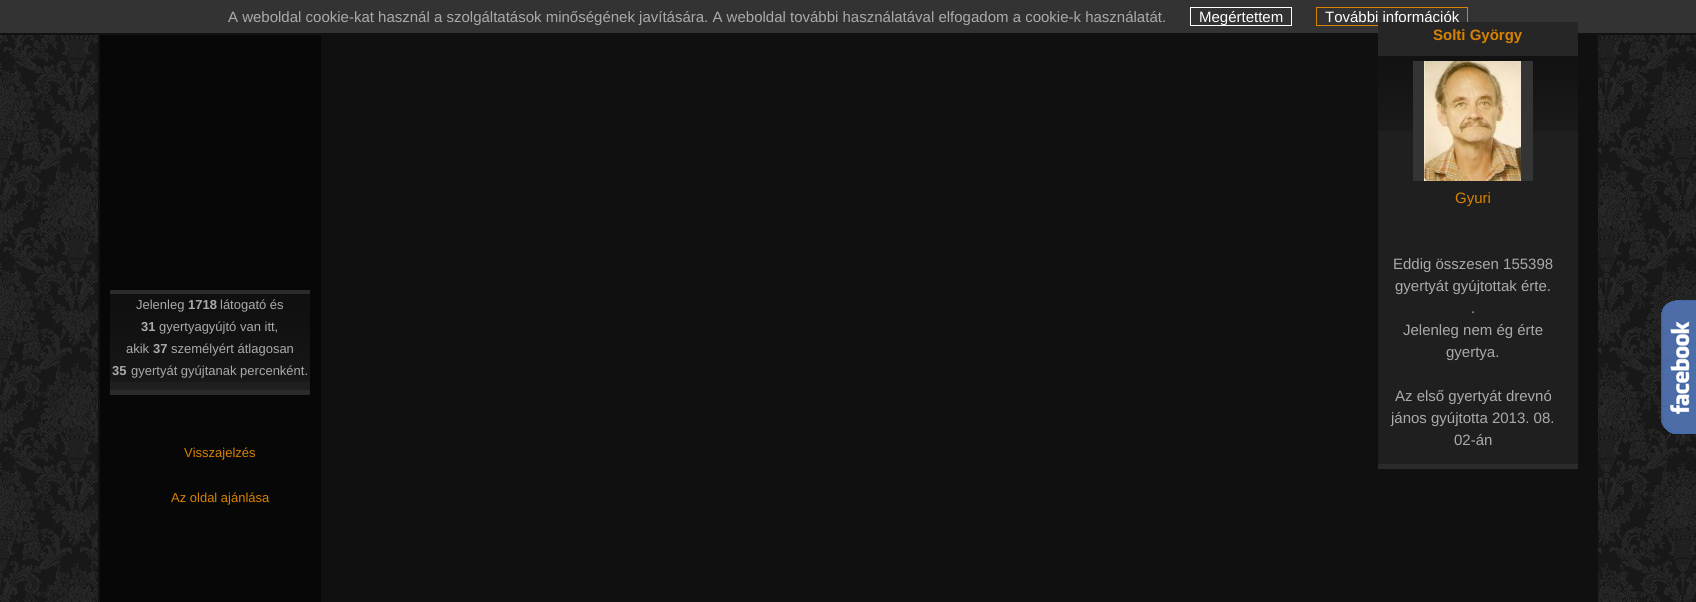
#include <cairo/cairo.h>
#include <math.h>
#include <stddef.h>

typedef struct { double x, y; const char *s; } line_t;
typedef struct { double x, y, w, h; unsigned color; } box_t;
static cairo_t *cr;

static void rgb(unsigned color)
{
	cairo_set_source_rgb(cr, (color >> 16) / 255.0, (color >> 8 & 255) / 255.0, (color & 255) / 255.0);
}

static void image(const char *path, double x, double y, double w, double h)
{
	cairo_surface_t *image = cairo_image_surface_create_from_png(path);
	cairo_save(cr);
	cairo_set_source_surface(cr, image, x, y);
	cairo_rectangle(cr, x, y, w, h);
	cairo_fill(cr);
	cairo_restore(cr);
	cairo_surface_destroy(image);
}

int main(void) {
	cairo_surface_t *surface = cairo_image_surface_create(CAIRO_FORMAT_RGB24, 1696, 602);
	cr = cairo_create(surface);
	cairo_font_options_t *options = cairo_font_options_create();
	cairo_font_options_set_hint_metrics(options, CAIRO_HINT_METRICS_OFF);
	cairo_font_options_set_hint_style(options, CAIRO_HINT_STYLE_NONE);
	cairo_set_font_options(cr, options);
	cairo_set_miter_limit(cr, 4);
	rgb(0xffffff);
	cairo_paint(cr);
	image("img/1.png", 0, 35, 1696, 567);
	rgb(0x333333);
	cairo_rectangle(cr, 0, 0, 1696, 33);
	cairo_fill(cr);
	rgb(0x111111);
	cairo_rectangle(cr, 0, 33, 1696, 2);
	cairo_fill(cr);
	cairo_rectangle(cr, 1190.5, 7.5, 101, 18);
	rgb(0xffffff);
	cairo_set_line_width(cr, 1);
	cairo_stroke(cr);
	cairo_rectangle(cr, 1316.5, 7.5, 151, 18);
	rgb(0xd78301);
	cairo_stroke(cr);
	image("img/2.png", 98, 35, 1500, 567);
	rgb(0x2b2b2b);
	cairo_rectangle(cr, 110, 290, 200, 4);
	cairo_fill(cr);
	image("img/3.png", 110, 294, 200, 88);
	{
		static const box_t items[] = {
			{110, 382, 200, 8, 0x1f1f1f},
			{110, 390, 200, 5, 0x2b2b2b},
			{1378, 131, 200, 333, 0x1f1f1f},
		};
		for (size_t i = 0; i < sizeof items / sizeof *items; i++) {
			rgb(items[i].color);
			cairo_rectangle(cr, items[i].x, items[i].y, items[i].w, items[i].h);
			cairo_fill(cr);
		}
	}
	image("img/4.png", 1378, 56, 200, 75);
	image("img/5.png", 1413, 61, 120, 120);
	rgb(0x2b2b2b);
	cairo_rectangle(cr, 1378, 464, 200, 5);
	cairo_fill(cr);
	image("img/6.png", 1661, 300, 35, 134);
	cairo_select_font_face(cr, "Liberation Sans", CAIRO_FONT_SLANT_NORMAL, CAIRO_FONT_WEIGHT_NORMAL);
	cairo_set_font_size(cr, 15);
	rgb(0xaaaaaa);
	cairo_move_to(cr, 228, 22);
	cairo_show_text(cr, "A weboldal cookie-kat használ a szolgáltatások minőségének javítására. A weboldal további használatával elfogadom a cookie-k használatát.");
	rgb(0xffffff);
	cairo_move_to(cr, 1199, 22);
	cairo_show_text(cr, "Megértettem");
	cairo_move_to(cr, 1325, 22);
	cairo_show_text(cr, "További információk");
	cairo_set_font_size(cr, 13);
	rgb(0xaaaaaa);
	cairo_move_to(cr, 136, 309);
	cairo_show_text(cr, "Jelenleg");
	cairo_select_font_face(cr, "Liberation Sans", CAIRO_FONT_SLANT_NORMAL, CAIRO_FONT_WEIGHT_BOLD);
	cairo_move_to(cr, 188, 309);
	cairo_show_text(cr, "1718");
	cairo_select_font_face(cr, "Liberation Sans", CAIRO_FONT_SLANT_NORMAL, CAIRO_FONT_WEIGHT_NORMAL);
	cairo_move_to(cr, 220, 309);
	cairo_show_text(cr, "látogató és");
	cairo_select_font_face(cr, "Liberation Sans", CAIRO_FONT_SLANT_NORMAL, CAIRO_FONT_WEIGHT_BOLD);
	cairo_move_to(cr, 141, 331);
	cairo_show_text(cr, "31");
	cairo_select_font_face(cr, "Liberation Sans", CAIRO_FONT_SLANT_NORMAL, CAIRO_FONT_WEIGHT_NORMAL);
	cairo_move_to(cr, 159, 331);
	cairo_show_text(cr, "gyertyagyújtó van itt,");
	cairo_move_to(cr, 126, 353);
	cairo_show_text(cr, "akik");
	cairo_select_font_face(cr, "Liberation Sans", CAIRO_FONT_SLANT_NORMAL, CAIRO_FONT_WEIGHT_BOLD);
	cairo_move_to(cr, 153, 353);
	cairo_show_text(cr, "37");
	cairo_select_font_face(cr, "Liberation Sans", CAIRO_FONT_SLANT_NORMAL, CAIRO_FONT_WEIGHT_NORMAL);
	cairo_move_to(cr, 171, 353);
	cairo_show_text(cr, "személyért átlagosan");
	cairo_select_font_face(cr, "Liberation Sans", CAIRO_FONT_SLANT_NORMAL, CAIRO_FONT_WEIGHT_BOLD);
	cairo_move_to(cr, 112, 375);
	cairo_show_text(cr, "35");
	cairo_select_font_face(cr, "Liberation Sans", CAIRO_FONT_SLANT_NORMAL, CAIRO_FONT_WEIGHT_NORMAL);
	cairo_move_to(cr, 131, 375);
	cairo_show_text(cr, "gyertyát gyújtanak percenként.");
	rgb(0xd78301);
	cairo_move_to(cr, 184, 457);
	cairo_show_text(cr, "Visszajelzés");
	cairo_move_to(cr, 171, 502);
	cairo_show_text(cr, "Az oldal ajánlása");
	rgb(0x262626);
	cairo_rectangle(cr, 1378, 22, 200, 34);
	cairo_fill(cr);
	cairo_select_font_face(cr, "Liberation Sans", CAIRO_FONT_SLANT_NORMAL, CAIRO_FONT_WEIGHT_BOLD);
	cairo_set_font_size(cr, 15);
	rgb(0xd78301);
	cairo_move_to(cr, 1433, 40);
	cairo_show_text(cr, "Solti György");
	cairo_select_font_face(cr, "Liberation Sans", CAIRO_FONT_SLANT_NORMAL, CAIRO_FONT_WEIGHT_NORMAL);
	cairo_move_to(cr, 1455, 203);
	cairo_show_text(cr, "Gyuri");
	rgb(0xaaaaaa);
	{
		static const line_t items[] = {
			{1393, 269, "Eddig összesen 155398"},
			{1395, 291, "gyertyát gyújtottak érte."},
			{1471, 313, "."},
			{1403, 335, "Jelenleg nem ég érte"},
			{1446, 357, "gyertya."},
			{1395, 401, "Az első gyertyát drevnó"},
			{1391, 423, "jános gyújtotta 2013. 08."},
			{1454, 445, "02-án"},
		};
		for (size_t i = 0; i < sizeof items / sizeof *items; i++) {
			cairo_move_to(cr, items[i].x, items[i].y);
			cairo_show_text(cr, items[i].s);
		}
	}
	cairo_surface_write_to_png(surface, "page.png");
	cairo_font_options_destroy(options);
	cairo_destroy(cr);
	cairo_surface_destroy(surface);
	return 0;
}
